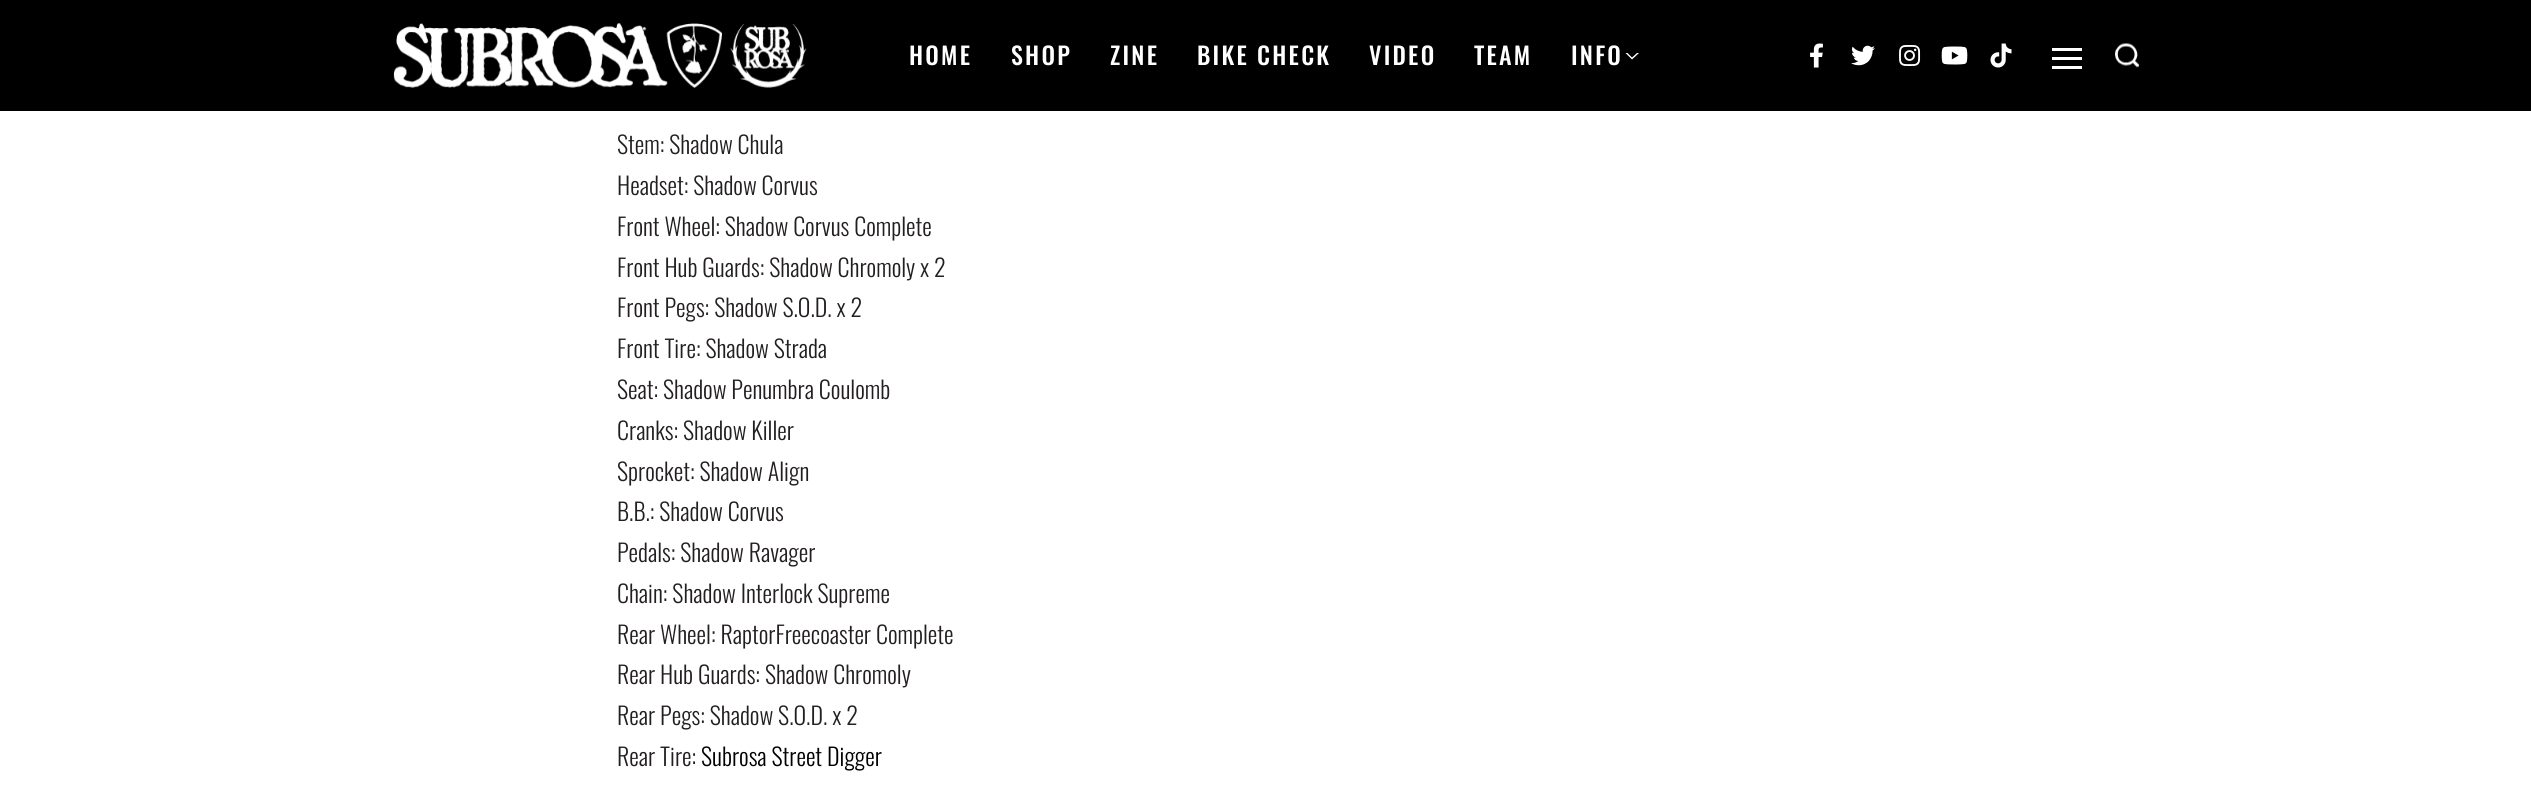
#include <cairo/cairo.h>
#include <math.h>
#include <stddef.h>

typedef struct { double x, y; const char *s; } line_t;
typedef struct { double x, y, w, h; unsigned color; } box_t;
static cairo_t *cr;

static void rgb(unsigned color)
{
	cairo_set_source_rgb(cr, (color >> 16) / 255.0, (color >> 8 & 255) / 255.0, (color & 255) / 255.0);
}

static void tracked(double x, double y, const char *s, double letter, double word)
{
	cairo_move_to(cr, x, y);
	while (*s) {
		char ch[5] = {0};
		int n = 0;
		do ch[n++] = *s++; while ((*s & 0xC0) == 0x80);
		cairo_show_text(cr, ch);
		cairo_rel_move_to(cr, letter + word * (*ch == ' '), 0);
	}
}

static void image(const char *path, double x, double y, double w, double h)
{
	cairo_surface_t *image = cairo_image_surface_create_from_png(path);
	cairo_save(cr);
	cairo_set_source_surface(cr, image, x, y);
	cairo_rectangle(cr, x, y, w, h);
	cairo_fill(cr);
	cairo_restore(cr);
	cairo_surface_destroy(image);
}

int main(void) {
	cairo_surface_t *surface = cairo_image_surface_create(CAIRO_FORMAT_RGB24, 2531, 789);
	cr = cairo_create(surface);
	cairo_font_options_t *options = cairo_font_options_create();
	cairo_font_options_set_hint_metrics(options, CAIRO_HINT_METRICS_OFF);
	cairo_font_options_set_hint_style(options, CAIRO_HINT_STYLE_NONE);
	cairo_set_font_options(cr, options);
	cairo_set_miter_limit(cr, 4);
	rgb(0xffffff);
	cairo_paint(cr);
	rgb(0x000000);
	cairo_rectangle(cr, 0, 0, 2531, 111);
	cairo_fill(cr);
	image("img/1.png", 393, 23, 414, 65);
	rgb(0xffffff);
	cairo_new_path(cr);
	cairo_move_to(cr, 1639, 53);
	cairo_line_to(cr, 1632, 59.5);
	cairo_line_to(cr, 1632, 57.5);
	cairo_line_to(cr, 1637, 53);
	cairo_close_path(cr);
	cairo_move_to(cr, 1632, 59.5);
	cairo_line_to(cr, 1625.5, 53);
	cairo_line_to(cr, 1627.5, 53);
	cairo_line_to(cr, 1632, 57.5);
	cairo_close_path(cr);
	cairo_fill(cr);
	image("img/2.png", 1810, 43, 13, 25);
	image("img/3.png", 1851, 45, 24, 21);
	image("img/4.png", 1899, 45, 22, 21);
	image("img/5.png", 1941, 46, 27, 19);
	image("img/6.png", 1990, 43, 22, 25);
	{
		static const box_t items[] = {
			{2052, 48, 30, 3, 0xffffff},
			{2052, 57, 30, 3, 0xffffff},
			{2052, 66, 30, 3, 0xffffff},
		};
		for (size_t i = 0; i < sizeof items / sizeof *items; i++) {
			rgb(items[i].color);
			cairo_rectangle(cr, items[i].x, items[i].y, items[i].w, items[i].h);
			cairo_fill(cr);
		}
	}
	image("img/7.png", 2115, 43, 24, 25);
	cairo_select_font_face(cr, "Oswald Medium", CAIRO_FONT_SLANT_NORMAL, CAIRO_FONT_WEIGHT_NORMAL);
	cairo_set_font_size(cr, 24);
	{
		static const line_t items[] = {
			{909, 65, "HOME"},
			{1011, 65, "SHOP"},
			{1110, 65, "ZINE"},
			{1197, 65, "BIKE CHECK"},
			{1369, 65, "VIDEO"},
			{1474, 65, "TEAM"},
			{1571, 65, "INFO"},
		};
		for (size_t i = 0; i < sizeof items / sizeof *items; i++) {
			tracked(items[i].x, items[i].y, items[i].s, 2.25, 0);
		}
	}
	cairo_select_font_face(cr, "Oswald Light", CAIRO_FONT_SLANT_NORMAL, CAIRO_FONT_WEIGHT_NORMAL);
	rgb(0x231f20);
	{
		static const line_t items[] = {
			{617, 154, "Stem: Shadow Chula"},
			{617, 195, "Headset: Shadow Corvus"},
			{617, 236, "Front Wheel: Shadow Corvus Complete"},
			{617, 277, "Front Hub Guards: Shadow Chromoly x 2"},
			{617, 317, "Front Pegs: Shadow S.O.D. x 2"},
			{617, 358, "Front Tire: Shadow Strada"},
			{617, 399, "Seat: Shadow Penumbra Coulomb"},
			{617, 440, "Cranks: Shadow Killer"},
			{617, 481, "Sprocket: Shadow Align"},
			{617, 521, "B.B.: Shadow Corvus"},
			{617, 562, "Pedals: Shadow Ravager"},
			{617, 603, "Chain: Shadow Interlock Supreme"},
			{617, 644, "Rear Wheel: RaptorFreecoaster Complete"},
			{617, 684, "Rear Hub Guards: Shadow Chromoly"},
			{617, 725, "Rear Pegs: Shadow S.O.D. x 2"},
			{617, 766, "Rear Tire:"},
		};
		for (size_t i = 0; i < sizeof items / sizeof *items; i++) {
			cairo_move_to(cr, items[i].x, items[i].y);
			cairo_show_text(cr, items[i].s);
		}
	}
	rgb(0x000000);
	cairo_move_to(cr, 701, 766);
	cairo_show_text(cr, "Subrosa Street Digger");
	cairo_surface_write_to_png(surface, "page.png");
	cairo_font_options_destroy(options);
	cairo_destroy(cr);
	cairo_surface_destroy(surface);
	return 0;
}
